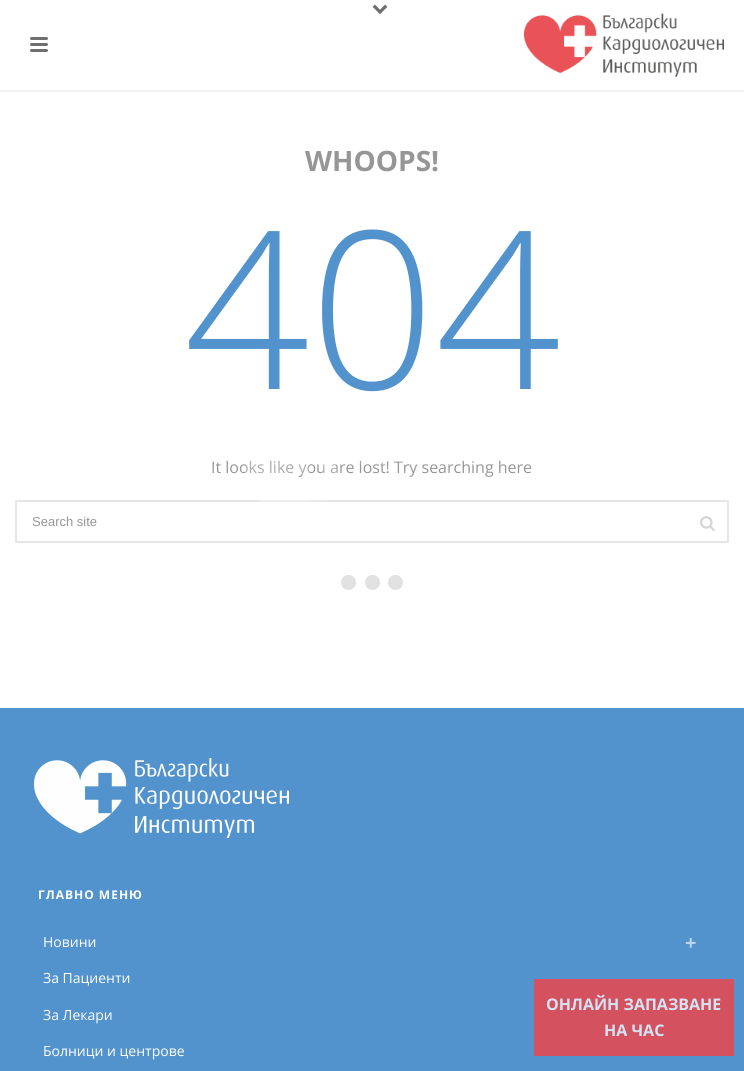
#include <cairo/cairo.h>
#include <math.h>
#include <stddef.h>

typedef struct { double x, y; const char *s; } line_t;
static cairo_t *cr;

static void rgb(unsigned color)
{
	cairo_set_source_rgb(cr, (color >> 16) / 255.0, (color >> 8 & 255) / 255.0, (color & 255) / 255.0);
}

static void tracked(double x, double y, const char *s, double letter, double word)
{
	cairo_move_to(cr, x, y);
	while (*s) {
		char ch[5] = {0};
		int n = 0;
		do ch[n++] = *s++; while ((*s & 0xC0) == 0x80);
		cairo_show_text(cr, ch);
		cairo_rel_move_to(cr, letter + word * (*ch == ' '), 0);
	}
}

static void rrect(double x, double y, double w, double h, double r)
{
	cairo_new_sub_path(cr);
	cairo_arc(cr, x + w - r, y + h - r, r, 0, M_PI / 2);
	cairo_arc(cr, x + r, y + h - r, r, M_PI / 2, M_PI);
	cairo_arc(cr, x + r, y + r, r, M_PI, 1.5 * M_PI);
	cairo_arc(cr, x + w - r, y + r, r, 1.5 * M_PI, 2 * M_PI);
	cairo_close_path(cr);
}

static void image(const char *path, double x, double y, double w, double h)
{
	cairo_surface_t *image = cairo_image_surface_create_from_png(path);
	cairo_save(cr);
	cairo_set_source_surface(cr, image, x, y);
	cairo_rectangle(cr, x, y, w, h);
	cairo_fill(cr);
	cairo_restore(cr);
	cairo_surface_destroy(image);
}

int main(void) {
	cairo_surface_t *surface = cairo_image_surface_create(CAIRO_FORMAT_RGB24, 744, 1071);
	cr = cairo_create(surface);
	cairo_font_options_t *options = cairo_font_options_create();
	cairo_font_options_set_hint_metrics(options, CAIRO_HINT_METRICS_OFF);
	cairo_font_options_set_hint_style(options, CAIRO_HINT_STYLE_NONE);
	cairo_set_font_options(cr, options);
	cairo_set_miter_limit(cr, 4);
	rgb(0xffffff);
	cairo_paint(cr);
	rgb(0xf1f1f1);
	cairo_rectangle(cr, 0, 90, 744, 2);
	cairo_fill(cr);
	image("img/1.png", 372, 4, 16, 10);
	rgb(0x6f6f6f);
	rrect(30, 37, 18, 3, 1.5);
	cairo_fill(cr);
	rrect(30, 43, 18, 3, 1.5);
	cairo_fill(cr);
	rrect(30, 49, 18, 3, 1.5);
	cairo_fill(cr);
	image("img/2.png", 524, 13, 200, 64);
	cairo_rectangle(cr, 16, 501, 712, 41);
	rgb(0xe6e6e6);
	cairo_stroke(cr);
	image("img/3.png", 700, 516, 15, 15);
	rgb(0x5293cd);
	cairo_rectangle(cr, 0, 708, 744, 363);
	cairo_fill(cr);
	image("img/4.png", 34, 758, 255, 80);
	rgb(0xe1e1e1);
	cairo_arc(cr, 348.5, 582.5, 7.5, 0, 2 * M_PI);
	cairo_fill(cr);
	cairo_arc(cr, 372.5, 582.5, 7.5, 0, 2 * M_PI);
	cairo_fill(cr);
	cairo_arc(cr, 395.5, 582.5, 7.5, 0, 2 * M_PI);
	cairo_fill(cr);
	cairo_set_source_rgba(cr, 1, 0.231, 0.231, 0.75);
	cairo_rectangle(cr, 534, 979, 200, 77);
	cairo_fill(cr);
	cairo_select_font_face(cr, "Open Sans", CAIRO_FONT_SLANT_NORMAL, CAIRO_FONT_WEIGHT_BOLD);
	cairo_set_font_size(cr, 28);
	rgb(0x969696);
	cairo_move_to(cr, 305, 171);
	cairo_show_text(cr, "WHOOPS!");
	cairo_select_font_face(cr, "Open Sans Light", CAIRO_FONT_SLANT_NORMAL, CAIRO_FONT_WEIGHT_NORMAL);
	cairo_set_font_size(cr, 220);
	rgb(0x5293cd);
	cairo_move_to(cr, 184, 389);
	cairo_show_text(cr, "404");
	cairo_select_font_face(cr, "Open Sans", CAIRO_FONT_SLANT_NORMAL, CAIRO_FONT_WEIGHT_NORMAL);
	cairo_set_font_size(cr, 16);
	rgb(0x969696);
	cairo_move_to(cr, 211, 473);
	cairo_show_text(cr, "It looks like you are lost! Try searching here");
	cairo_select_font_face(cr, "Liberation Sans", CAIRO_FONT_SLANT_NORMAL, CAIRO_FONT_WEIGHT_NORMAL);
	cairo_set_font_size(cr, 13);
	cairo_move_to(cr, 32, 526);
	cairo_show_text(cr, "Search site");
	cairo_select_font_face(cr, "Open Sans", CAIRO_FONT_SLANT_NORMAL, CAIRO_FONT_WEIGHT_BOLD);
	cairo_set_font_size(cr, 12);
	rgb(0xffffff);
	tracked(38, 899, "ГЛАВНО МЕНЮ", 1, 0);
	cairo_select_font_face(cr, "Open Sans", CAIRO_FONT_SLANT_NORMAL, CAIRO_FONT_WEIGHT_NORMAL);
	cairo_set_font_size(cr, 14);
	cairo_move_to(cr, 43, 947);
	cairo_show_text(cr, "Новини");
	cairo_select_font_face(cr, "Open Sans", CAIRO_FONT_SLANT_NORMAL, CAIRO_FONT_WEIGHT_BOLD);
	cairo_set_font_size(cr, 20);
	rgb(0xbad4eb);
	cairo_move_to(cr, 685, 950);
	cairo_show_text(cr, "+");
	cairo_select_font_face(cr, "Open Sans", CAIRO_FONT_SLANT_NORMAL, CAIRO_FONT_WEIGHT_NORMAL);
	cairo_set_font_size(cr, 14);
	rgb(0xffffff);
	{
		static const line_t items[] = {
			{43, 983, "За Пациенти"},
			{43, 1020, "За Лекари"},
			{43, 1056, "Болници и центрове"},
		};
		for (size_t i = 0; i < sizeof items / sizeof *items; i++) {
			cairo_move_to(cr, items[i].x, items[i].y);
			cairo_show_text(cr, items[i].s);
		}
	}
	image("img/5.png", 245, 461, 191, 41);
	cairo_select_font_face(cr, "Open Sans", CAIRO_FONT_SLANT_NORMAL, CAIRO_FONT_WEIGHT_BOLD);
	cairo_set_font_size(cr, 16);
	rgb(0xd4e4f3);
	cairo_move_to(cr, 546, 1010);
	cairo_show_text(cr, "ОНЛАЙН ЗАПАЗВАНЕ");
	cairo_move_to(cr, 604, 1036);
	cairo_show_text(cr, "НА ЧАС");
	cairo_surface_write_to_png(surface, "page.png");
	cairo_font_options_destroy(options);
	cairo_destroy(cr);
	cairo_surface_destroy(surface);
	return 0;
}
